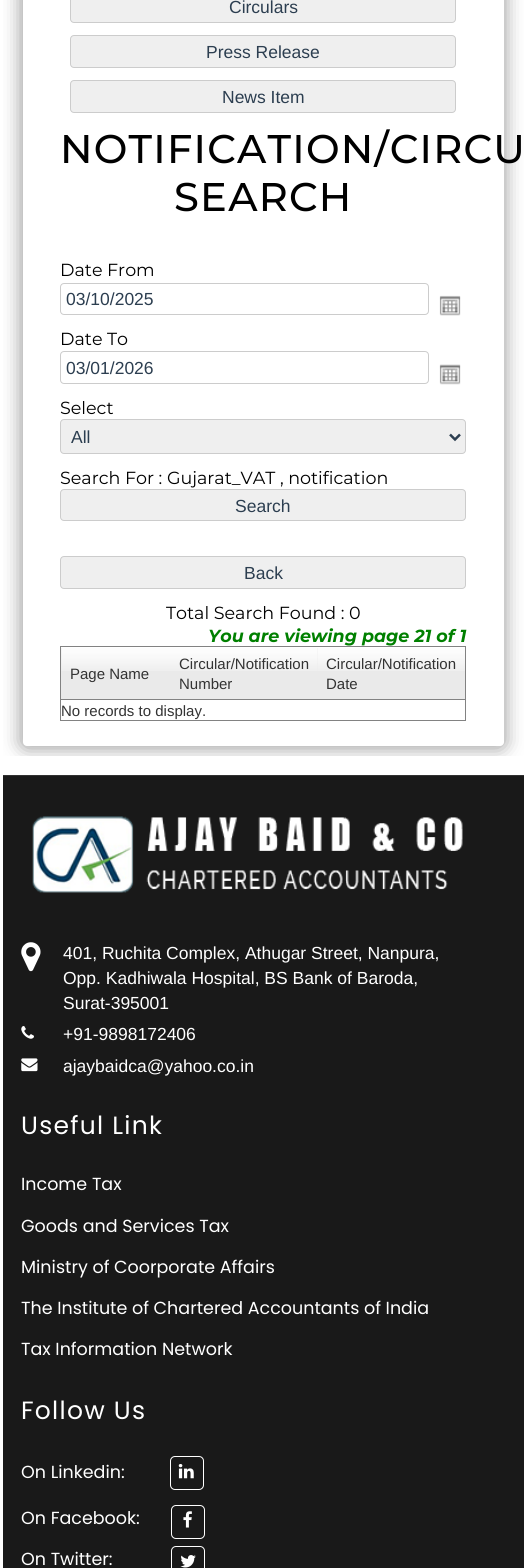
#include <cairo/cairo.h>
#include <math.h>
#include <stddef.h>

typedef struct { double x, y; const char *s; } line_t;
static cairo_t *cr;

static void rgb(unsigned color)
{
	cairo_set_source_rgb(cr, (color >> 16) / 255.0, (color >> 8 & 255) / 255.0, (color & 255) / 255.0);
}

static void tracked(double x, double y, const char *s, double letter, double word)
{
	cairo_move_to(cr, x, y);
	while (*s) {
		char ch[5] = {0};
		int n = 0;
		do ch[n++] = *s++; while ((*s & 0xC0) == 0x80);
		cairo_show_text(cr, ch);
		cairo_rel_move_to(cr, letter + word * (*ch == ' '), 0);
	}
}

static void rrect(double x, double y, double w, double h, double r)
{
	cairo_new_sub_path(cr);
	cairo_arc(cr, x + w - r, y + h - r, r, 0, M_PI / 2);
	cairo_arc(cr, x + r, y + h - r, r, M_PI / 2, M_PI);
	cairo_arc(cr, x + r, y + r, r, M_PI, 1.5 * M_PI);
	cairo_arc(cr, x + w - r, y + r, r, 1.5 * M_PI, 2 * M_PI);
	cairo_close_path(cr);
}

static void soft_shadow(double x, double y, double w, double h, double r, double blur, double alpha)
{
	cairo_push_group_with_content(cr, CAIRO_CONTENT_ALPHA);
	cairo_set_operator(cr, CAIRO_OPERATOR_SOURCE);
	for (int i = 15; i >= -15 && fmin(w, h) + blur * i / 3 > 0; i -= 2) {
		double e = blur * i / 6;
		cairo_set_source_rgba(cr, 0, 0, 0, alpha * erfc((i - 1) / 8.5) / 2);
		rrect(x - e, y - e, w + 2 * e, h + 2 * e, fmax(0, fmin(r + e + blur * .6, fmin(w, h) / 2 + e)));
		cairo_fill(cr);
	}
	cairo_pattern_t *soft = cairo_pop_group(cr);
	cairo_mask(cr, soft);
	cairo_pattern_destroy(soft);
}

static void image(const char *path, double x, double y, double w, double h)
{
	cairo_surface_t *image = cairo_image_surface_create_from_png(path);
	cairo_save(cr);
	cairo_set_source_surface(cr, image, x, y);
	cairo_rectangle(cr, x, y, w, h);
	cairo_fill(cr);
	cairo_restore(cr);
	cairo_surface_destroy(image);
}

int main(void) {
	cairo_surface_t *surface = cairo_image_surface_create(CAIRO_FORMAT_RGB24, 526, 1568);
	cr = cairo_create(surface);
	cairo_font_options_t *options = cairo_font_options_create();
	cairo_font_options_set_hint_metrics(options, CAIRO_HINT_METRICS_OFF);
	cairo_font_options_set_hint_style(options, CAIRO_HINT_STYLE_NONE);
	cairo_set_font_options(cr, options);
	cairo_set_miter_limit(cr, 4);
	rgb(0xffffff);
	cairo_paint(cr);
	rgb(0x191919);
	cairo_rectangle(cr, 3, 776, 521, 792);
	cairo_fill(cr);
	rgb(0x313131);
	cairo_rectangle(cr, 3, 775, 521, 1);
	cairo_fill(cr);
	cairo_save(cr);
	cairo_rectangle(cr, 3, 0, 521, 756);
	cairo_clip(cr);
	rgb(0x000000);
	soft_shadow(21, -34, 484, 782, 5, 9.5, 0.4);
	cairo_restore(cr);
	rgb(0xffffff);
	rrect(23, -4, 481, 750, 4);
	cairo_fill(cr);
	rgb(0xefefef);
	rrect(70.5, -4.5, 385, 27, 3.5);
	cairo_fill_preserve(cr);
	rgb(0xcccccc);
	cairo_set_line_width(cr, 1);
	cairo_stroke(cr);
	rgb(0xefefef);
	rrect(70.5, 35.5, 385, 32, 3.5);
	cairo_fill_preserve(cr);
	rgb(0xcccccc);
	cairo_stroke(cr);
	rgb(0xefefef);
	rrect(70.5, 80.5, 385, 32, 3.5);
	cairo_fill_preserve(cr);
	rgb(0xcccccc);
	cairo_stroke(cr);
	rrect(60.5, 283.5, 368, 31, 3.5);
	cairo_stroke(cr);
	image("img/1.png", 439, 295, 22, 21);
	rrect(60.5, 351.5, 368, 32, 3.5);
	cairo_stroke(cr);
	image("img/2.png", 439, 364, 22, 21);
	rgb(0xefefef);
	rrect(60.5, 419.5, 405, 34, 3.5);
	cairo_fill_preserve(cr);
	rgb(0xcccccc);
	cairo_stroke(cr);
	cairo_new_path(cr);
	cairo_move_to(cr, 450, 434.5);
	cairo_line_to(cr, 455, 439.5);
	cairo_line_to(cr, 460, 434.5);
	rgb(0x2c3e50);
	cairo_set_line_width(cr, 2.5);
	cairo_stroke(cr);
	rgb(0xefefef);
	rrect(60.5, 489.5, 405, 31, 3.5);
	cairo_fill_preserve(cr);
	rgb(0xcccccc);
	cairo_set_line_width(cr, 1);
	cairo_stroke(cr);
	rgb(0xefefef);
	rrect(60.5, 556.5, 405, 32, 3.5);
	cairo_fill_preserve(cr);
	rgb(0xcccccc);
	cairo_stroke(cr);
	cairo_rectangle(cr, 60.5, 646.5, 405, 74);
	rgb(0x828282);
	cairo_stroke(cr);
	rgb(0xeaeaea);
	cairo_rectangle(cr, 61, 648, 257, 51);
	cairo_fill(cr);
	image("img/3.png", 61, 648, 109, 23);
	rgb(0x828282);
	cairo_rectangle(cr, 61, 699, 404, 1);
	cairo_fill(cr);
	image("img/4.png", 170, 648, 148, 23);
	rgb(0xeaeaea);
	cairo_rectangle(cr, 318, 671, 147, 28);
	cairo_fill(cr);
	image("img/5.png", 317, 648, 148, 23);
	image("img/6.png", 32, 816, 431, 77);
	image("img/7.png", 21, 942, 20, 30);
	image("img/8.png", 21, 1026, 13, 13);
	image("img/9.png", 21, 1058, 17, 14);
	rrect(170.5, 1456.5, 33, 33, 4.5);
	rgb(0xffffff);
	cairo_stroke(cr);
	image("img/10.png", 178, 1464, 16, 15);
	rrect(171.5, 1505.5, 33, 33, 4.5);
	cairo_stroke(cr);
	image("img/11.png", 183, 1511, 9, 17);
	rrect(171.5, 1546.5, 33, 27, 4.5);
	cairo_stroke(cr);
	image("img/12.png", 180, 1555, 16, 13);
	cairo_select_font_face(cr, "Liberation Sans", CAIRO_FONT_SLANT_NORMAL, CAIRO_FONT_WEIGHT_NORMAL);
	cairo_set_font_size(cr, 17.5);
	rgb(0x2c3e50);
	{
		static const line_t items[] = {
			{229, 13, "Circulars"},
			{206, 58, "Press Release"},
			{222, 103, "News Item"},
		};
		for (size_t i = 0; i < sizeof items / sizeof *items; i++) {
			cairo_move_to(cr, items[i].x, items[i].y);
			cairo_show_text(cr, items[i].s);
		}
	}
	cairo_select_font_face(cr, "Montserrat Medium", CAIRO_FONT_SLANT_NORMAL, CAIRO_FONT_WEIGHT_NORMAL);
	cairo_set_font_size(cr, 40);
	rgb(0x000000);
	tracked(60, 163, "NOTIFICATION/CIRCU", 1.25, 0);
	tracked(174, 211, "SEARCH", 1.25, 0);
	cairo_select_font_face(cr, "Montserrat", CAIRO_FONT_SLANT_NORMAL, CAIRO_FONT_WEIGHT_NORMAL);
	cairo_set_font_size(cr, 17.5);
	cairo_move_to(cr, 60, 276);
	cairo_show_text(cr, "Date From");
	cairo_select_font_face(cr, "Liberation Sans", CAIRO_FONT_SLANT_NORMAL, CAIRO_FONT_WEIGHT_NORMAL);
	rgb(0x2c3e50);
	cairo_move_to(cr, 66, 305);
	cairo_show_text(cr, "03/10/2025");
	cairo_select_font_face(cr, "Montserrat", CAIRO_FONT_SLANT_NORMAL, CAIRO_FONT_WEIGHT_NORMAL);
	rgb(0x000000);
	cairo_move_to(cr, 60, 345);
	cairo_show_text(cr, "Date To");
	cairo_select_font_face(cr, "Liberation Sans", CAIRO_FONT_SLANT_NORMAL, CAIRO_FONT_WEIGHT_NORMAL);
	rgb(0x2c3e50);
	cairo_move_to(cr, 66, 374);
	cairo_show_text(cr, "03/01/2026");
	cairo_select_font_face(cr, "Montserrat", CAIRO_FONT_SLANT_NORMAL, CAIRO_FONT_WEIGHT_NORMAL);
	rgb(0x000000);
	cairo_move_to(cr, 60, 414);
	cairo_show_text(cr, "Select");
	cairo_select_font_face(cr, "Liberation Sans", CAIRO_FONT_SLANT_NORMAL, CAIRO_FONT_WEIGHT_NORMAL);
	rgb(0x2c3e50);
	cairo_move_to(cr, 71, 443);
	cairo_show_text(cr, "All");
	cairo_select_font_face(cr, "Montserrat", CAIRO_FONT_SLANT_NORMAL, CAIRO_FONT_WEIGHT_NORMAL);
	rgb(0x000000);
	cairo_move_to(cr, 60, 484);
	cairo_show_text(cr, "Search For : Gujarat_VAT , notification");
	cairo_select_font_face(cr, "Liberation Sans", CAIRO_FONT_SLANT_NORMAL, CAIRO_FONT_WEIGHT_NORMAL);
	rgb(0x2c3e50);
	cairo_move_to(cr, 235, 512);
	cairo_show_text(cr, "Search");
	cairo_move_to(cr, 244, 579);
	cairo_show_text(cr, "Back");
	cairo_select_font_face(cr, "Montserrat", CAIRO_FONT_SLANT_NORMAL, CAIRO_FONT_WEIGHT_NORMAL);
	rgb(0x000000);
	cairo_move_to(cr, 166, 619);
	cairo_show_text(cr, "Total Search Found : 0");
	cairo_select_font_face(cr, "Montserrat", CAIRO_FONT_SLANT_ITALIC, CAIRO_FONT_WEIGHT_BOLD);
	rgb(0x008000);
	cairo_move_to(cr, 208, 642);
	cairo_show_text(cr, "You are viewing page 21 of 1");
	cairo_select_font_face(cr, "Liberation Sans", CAIRO_FONT_SLANT_NORMAL, CAIRO_FONT_WEIGHT_NORMAL);
	cairo_set_font_size(cr, 15);
	rgb(0x333333);
	{
		static const line_t items[] = {
			{70, 679, "Page Name"},
			{179, 669, "Circular/Notification"},
			{179, 689, "Number"},
			{326, 669, "Circular/Notification"},
			{326, 689, "Date"},
			{61, 716, "No records to display."},
		};
		for (size_t i = 0; i < sizeof items / sizeof *items; i++) {
			cairo_move_to(cr, items[i].x, items[i].y);
			cairo_show_text(cr, items[i].s);
		}
	}
	cairo_set_font_size(cr, 17.5);
	rgb(0xffffff);
	{
		static const line_t items[] = {
			{63, 959, "401, Ruchita Complex, Athugar Street, Nanpura,"},
			{63, 984, "Opp. Kadhiwala Hospital, BS Bank of Baroda,"},
			{63, 1009, "Surat-395001"},
			{63, 1040, "+91-9898172406"},
			{63, 1072, "ajaybaidca@yahoo.co.in"},
		};
		for (size_t i = 0; i < sizeof items / sizeof *items; i++) {
			cairo_move_to(cr, items[i].x, items[i].y);
			cairo_show_text(cr, items[i].s);
		}
	}
	cairo_select_font_face(cr, "Poppins", CAIRO_FONT_SLANT_NORMAL, CAIRO_FONT_WEIGHT_NORMAL);
	cairo_set_font_size(cr, 25);
	tracked(21, 1134, "Useful Link", 1.25, 0);
	cairo_set_font_size(cr, 17.5);
	{
		static const line_t items[] = {
			{21, 1190, "Income Tax"},
			{21, 1232, "Goods and Services Tax"},
			{21, 1273, "Ministry of Coorporate Affairs"},
			{21, 1314, "The Institute of Chartered Accountants of India"},
			{21, 1355, "Tax Information Network"},
		};
		for (size_t i = 0; i < sizeof items / sizeof *items; i++) {
			cairo_move_to(cr, items[i].x, items[i].y);
			cairo_show_text(cr, items[i].s);
		}
	}
	cairo_set_font_size(cr, 25);
	tracked(21, 1419, "Follow Us", 1.25, 0);
	cairo_set_font_size(cr, 17.5);
	{
		static const line_t items[] = {
			{21, 1478, "On Linkedin:"},
			{21, 1524, "On Facebook:"},
			{21, 1565, "On Twitter:"},
		};
		for (size_t i = 0; i < sizeof items / sizeof *items; i++) {
			cairo_move_to(cr, items[i].x, items[i].y);
			cairo_show_text(cr, items[i].s);
		}
	}
	cairo_surface_write_to_png(surface, "page.png");
	cairo_font_options_destroy(options);
	cairo_destroy(cr);
	cairo_surface_destroy(surface);
	return 0;
}
